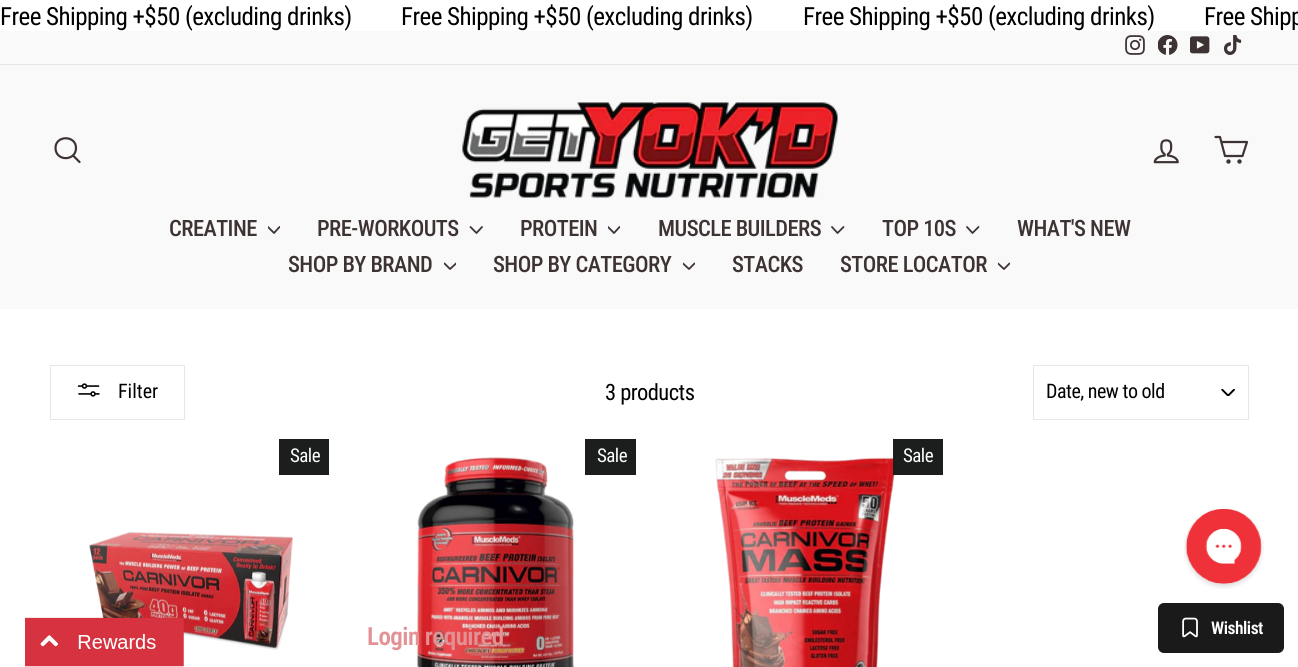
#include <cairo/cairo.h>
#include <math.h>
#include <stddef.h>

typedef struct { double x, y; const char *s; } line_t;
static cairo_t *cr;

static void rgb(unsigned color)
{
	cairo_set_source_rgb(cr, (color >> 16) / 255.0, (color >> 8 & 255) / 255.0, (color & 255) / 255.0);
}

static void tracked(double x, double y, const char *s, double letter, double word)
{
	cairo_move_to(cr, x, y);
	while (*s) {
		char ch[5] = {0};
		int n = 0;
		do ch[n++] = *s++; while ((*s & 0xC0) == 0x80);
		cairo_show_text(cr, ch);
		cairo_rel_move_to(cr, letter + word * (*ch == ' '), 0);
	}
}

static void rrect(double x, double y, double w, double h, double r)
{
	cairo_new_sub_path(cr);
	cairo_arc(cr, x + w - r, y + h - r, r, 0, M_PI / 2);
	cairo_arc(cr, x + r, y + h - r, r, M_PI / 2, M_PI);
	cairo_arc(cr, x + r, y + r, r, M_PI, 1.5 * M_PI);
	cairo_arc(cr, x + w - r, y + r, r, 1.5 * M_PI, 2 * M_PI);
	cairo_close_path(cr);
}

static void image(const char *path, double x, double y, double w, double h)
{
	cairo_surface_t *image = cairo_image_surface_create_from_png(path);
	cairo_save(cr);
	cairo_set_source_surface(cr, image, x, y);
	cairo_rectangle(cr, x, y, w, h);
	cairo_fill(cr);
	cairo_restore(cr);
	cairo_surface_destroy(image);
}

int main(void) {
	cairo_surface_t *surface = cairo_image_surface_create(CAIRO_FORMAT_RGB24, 1298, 667);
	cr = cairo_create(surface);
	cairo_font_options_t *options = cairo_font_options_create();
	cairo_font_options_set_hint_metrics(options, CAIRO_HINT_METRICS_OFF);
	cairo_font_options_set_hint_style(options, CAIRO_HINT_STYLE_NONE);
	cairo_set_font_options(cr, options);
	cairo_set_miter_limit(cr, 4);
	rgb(0xffffff);
	cairo_paint(cr);
	rgb(0xf9f9f9);
	cairo_rectangle(cr, 0, 31, 1298, 33);
	cairo_fill(cr);
	image("img/1.png", 1125, 35, 20, 20);
	image("img/2.png", 1158, 35, 20, 20);
	image("img/3.png", 1190, 36, 20, 18);
	image("img/4.png", 1223, 35, 19, 20);
	cairo_rectangle(cr, 0, 65, 1298, 244);
	cairo_fill(cr);
	rgb(0xe6e5e5);
	cairo_rectangle(cr, 0, 64, 1298, 1);
	cairo_fill(cr);
	cairo_new_path(cr);
	cairo_move_to(cr, 76, 148);
	cairo_curve_to(cr, 76, 161.5, 55.5, 161.5, 55.5, 148);
	cairo_curve_to(cr, 55.5, 135, 76, 135, 76, 148);
	cairo_close_path(cr);
	cairo_move_to(cr, 79.5, 162);
	cairo_line_to(cr, 73, 155.5);
	rgb(0x3e3333);
	cairo_set_line_width(cr, 2.2);
	cairo_set_line_cap(cr, CAIRO_LINE_CAP_ROUND);
	cairo_set_line_join(cr, CAIRO_LINE_JOIN_ROUND);
	cairo_stroke(cr);
	image("img/5.png", 462, 102, 376, 96);
	image("img/6.png", 1153, 139, 26, 25);
	cairo_new_path(cr);
	cairo_move_to(cr, 1221.5, 142);
	cairo_line_to(cr, 1247, 142);
	cairo_line_to(cr, 1242.5, 156);
	cairo_line_to(cr, 1225, 156);
	cairo_line_to(cr, 1220, 137);
	cairo_line_to(cr, 1215.5, 137);
	cairo_stroke(cr);
	cairo_arc(cr, 1228.5, 161.5, 1.1, 0, 2 * M_PI);
	cairo_set_line_cap(cr, CAIRO_LINE_CAP_BUTT);
	cairo_set_line_join(cr, CAIRO_LINE_JOIN_MITER);
	cairo_stroke(cr);
	cairo_arc(cr, 1239.5, 161.5, 1.1, 0, 2 * M_PI);
	cairo_stroke(cr);
	cairo_save(cr);
	cairo_rectangle(cr, 268, 224, 12, 12);
	cairo_clip(cr);
	cairo_new_path(cr);
	cairo_move_to(cr, 268, 227);
	cairo_line_to(cr, 274, 233);
	cairo_line_to(cr, 279.5, 227);
	cairo_set_line_width(cr, 1.8);
	cairo_set_line_cap(cr, CAIRO_LINE_CAP_ROUND);
	cairo_set_line_join(cr, CAIRO_LINE_JOIN_ROUND);
	cairo_stroke(cr);
	cairo_restore(cr);
	cairo_new_path(cr);
	cairo_move_to(cr, 470.5, 227);
	cairo_line_to(cr, 476.5, 233);
	cairo_line_to(cr, 482, 227);
	cairo_set_line_width(cr, 1.8);
	cairo_set_line_cap(cr, CAIRO_LINE_CAP_ROUND);
	cairo_set_line_join(cr, CAIRO_LINE_JOIN_ROUND);
	cairo_stroke(cr);
	cairo_save(cr);
	cairo_rectangle(cr, 608, 224, 12, 12);
	cairo_clip(cr);
	cairo_new_path(cr);
	cairo_move_to(cr, 608, 227);
	cairo_line_to(cr, 614, 233);
	cairo_line_to(cr, 619.5, 227);
	cairo_stroke(cr);
	cairo_restore(cr);
	cairo_new_path(cr);
	cairo_move_to(cr, 832, 227);
	cairo_line_to(cr, 837.5, 233);
	cairo_line_to(cr, 843.5, 227);
	cairo_stroke(cr);
	cairo_new_path(cr);
	cairo_move_to(cr, 967, 227);
	cairo_line_to(cr, 972.5, 233);
	cairo_line_to(cr, 978.5, 227);
	cairo_stroke(cr);
	cairo_save(cr);
	cairo_rectangle(cr, 444, 260, 12, 13);
	cairo_clip(cr);
	cairo_new_path(cr);
	cairo_move_to(cr, 444.5, 263.5);
	cairo_line_to(cr, 450, 269);
	cairo_line_to(cr, 456, 263.5);
	cairo_stroke(cr);
	cairo_restore(cr);
	cairo_save(cr);
	cairo_rectangle(cr, 683, 260, 12, 13);
	cairo_clip(cr);
	cairo_new_path(cr);
	cairo_move_to(cr, 683, 263.5);
	cairo_line_to(cr, 689, 269);
	cairo_line_to(cr, 694.5, 263.5);
	cairo_stroke(cr);
	cairo_restore(cr);
	cairo_save(cr);
	cairo_rectangle(cr, 998, 260, 12, 13);
	cairo_clip(cr);
	cairo_new_path(cr);
	cairo_move_to(cr, 998, 263.5);
	cairo_line_to(cr, 1004, 269);
	cairo_line_to(cr, 1009.5, 263.5);
	cairo_stroke(cr);
	cairo_restore(cr);
	cairo_rectangle(cr, 50.5, 365.5, 134, 54);
	rgb(0xe8e8e1);
	cairo_set_line_width(cr, 1);
	cairo_set_line_cap(cr, CAIRO_LINE_CAP_BUTT);
	cairo_set_line_join(cr, CAIRO_LINE_JOIN_MITER);
	cairo_stroke(cr);
	image("img/7.png", 77, 383, 23, 14);
	image("img/8.png", 1221, 389, 14, 7);
	cairo_rectangle(cr, 1033.5, 365.5, 215, 54);
	cairo_stroke(cr);
	rgb(0x1c1d1d);
	cairo_rectangle(cr, 279, 439, 50, 36);
	cairo_fill(cr);
	image("img/9.png", 89, 532, 204, 118);
	cairo_rectangle(cr, 585, 439, 51, 36);
	cairo_fill(cr);
	image("img/10.png", 416, 457, 159, 210);
	image("img/11.png", 715, 457, 180, 210);
	cairo_rectangle(cr, 893, 439, 50, 36);
	cairo_fill(cr);
	image("img/12.png", 1184, 508, 80, 81);
	image("img/13.png", 25, 617, 159, 50);
	rgb(0x1a1a1a);
	rrect(1158, 603, 126, 50, 6);
	cairo_fill(cr);
	image("img/14.png", 1182, 617, 16, 21);
	cairo_select_font_face(cr, "Roboto Condensed", CAIRO_FONT_SLANT_NORMAL, CAIRO_FONT_WEIGHT_NORMAL);
	cairo_set_font_size(cr, 25);
	rgb(0x000000);
	{
		static const line_t items[] = {
			{0, 25, "Free Shipping +$50 (excluding drinks)"},
			{401, 25, "Free Shipping +$50 (excluding drinks)"},
			{803, 25, "Free Shipping +$50 (excluding drinks)"},
			{1204, 25, "Free Shipp"},
		};
		for (size_t i = 0; i < sizeof items / sizeof *items; i++) {
			tracked(items[i].x, items[i].y, items[i].s, -0.55, 0);
		}
	}
	cairo_select_font_face(cr, "Roboto Condensed Medium", CAIRO_FONT_SLANT_NORMAL, CAIRO_FONT_WEIGHT_NORMAL);
	cairo_set_font_size(cr, 22.5);
	rgb(0x3e3333);
	{
		static const line_t items[] = {
			{169, 236, "CREATINE"},
			{317, 236, "PRE-WORKOUTS"},
			{520, 236, "PROTEIN"},
			{658, 236, "MUSCLE BUILDERS"},
			{882, 236, "TOP 10S"},
			{1017, 236, "WHAT'S NEW"},
			{288, 272, "SHOP BY BRAND"},
			{493, 272, "SHOP BY CATEGORY"},
			{732, 272, "STACKS"},
			{840, 272, "STORE LOCATOR"},
		};
		for (size_t i = 0; i < sizeof items / sizeof *items; i++) {
			tracked(items[i].x, items[i].y, items[i].s, -0.55, 0);
		}
	}
	cairo_select_font_face(cr, "Roboto Condensed", CAIRO_FONT_SLANT_NORMAL, CAIRO_FONT_WEIGHT_NORMAL);
	cairo_set_font_size(cr, 20);
	rgb(0x000000);
	cairo_move_to(cr, 118, 398);
	cairo_show_text(cr, "Filter");
	cairo_set_font_size(cr, 22.5);
	tracked(605, 400, "3 products", -0.55, 0);
	cairo_set_font_size(cr, 20);
	tracked(1046, 398, "Date, new to old", -0.5, 0);
	cairo_set_font_size(cr, 19);
	rgb(0xffffff);
	{
		static const line_t items[] = {
			{290, 462, "Sale"},
			{597, 462, "Sale"},
			{903, 462, "Sale"},
		};
		for (size_t i = 0; i < sizeof items / sizeof *items; i++) {
			tracked(items[i].x, items[i].y, items[i].s, -0.55, 0);
		}
	}
	cairo_select_font_face(cr, "Roboto Condensed SemiBold", CAIRO_FONT_SLANT_NORMAL, CAIRO_FONT_WEIGHT_NORMAL);
	cairo_set_font_size(cr, 25);
	rgb(0xe29294);
	tracked(367, 645, "Login required", -0.55, 0);
	cairo_set_font_size(cr, 17.5);
	rgb(0xffffff);
	tracked(1211, 634, "Wishlist", -0.5, 0);
	cairo_surface_write_to_png(surface, "page.png");
	cairo_font_options_destroy(options);
	cairo_destroy(cr);
	cairo_surface_destroy(surface);
	return 0;
}
